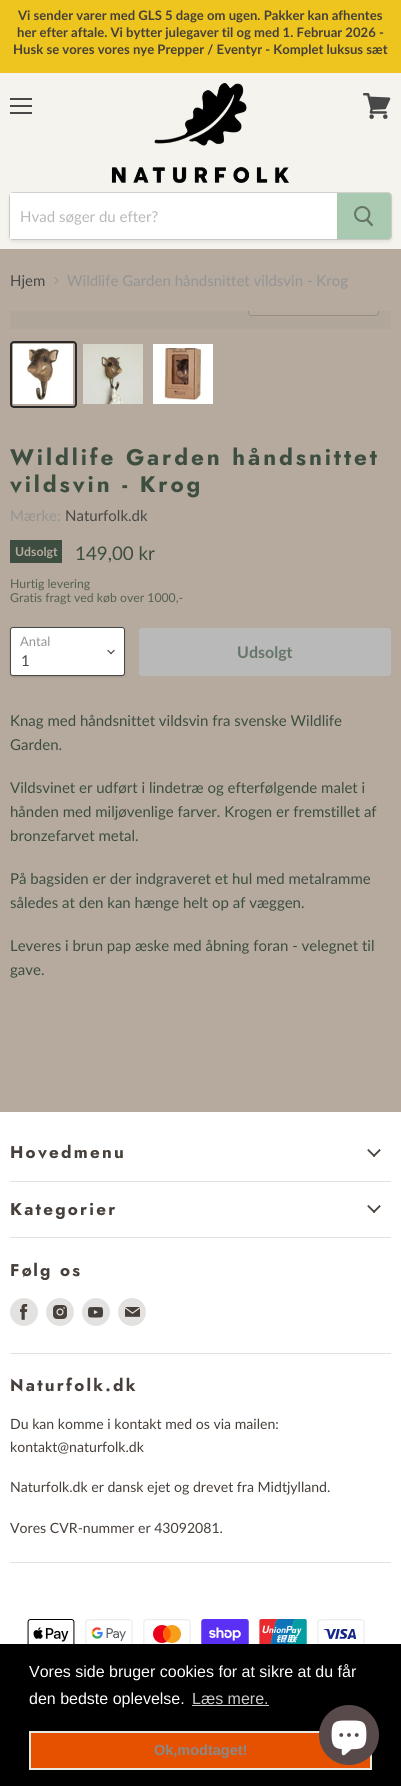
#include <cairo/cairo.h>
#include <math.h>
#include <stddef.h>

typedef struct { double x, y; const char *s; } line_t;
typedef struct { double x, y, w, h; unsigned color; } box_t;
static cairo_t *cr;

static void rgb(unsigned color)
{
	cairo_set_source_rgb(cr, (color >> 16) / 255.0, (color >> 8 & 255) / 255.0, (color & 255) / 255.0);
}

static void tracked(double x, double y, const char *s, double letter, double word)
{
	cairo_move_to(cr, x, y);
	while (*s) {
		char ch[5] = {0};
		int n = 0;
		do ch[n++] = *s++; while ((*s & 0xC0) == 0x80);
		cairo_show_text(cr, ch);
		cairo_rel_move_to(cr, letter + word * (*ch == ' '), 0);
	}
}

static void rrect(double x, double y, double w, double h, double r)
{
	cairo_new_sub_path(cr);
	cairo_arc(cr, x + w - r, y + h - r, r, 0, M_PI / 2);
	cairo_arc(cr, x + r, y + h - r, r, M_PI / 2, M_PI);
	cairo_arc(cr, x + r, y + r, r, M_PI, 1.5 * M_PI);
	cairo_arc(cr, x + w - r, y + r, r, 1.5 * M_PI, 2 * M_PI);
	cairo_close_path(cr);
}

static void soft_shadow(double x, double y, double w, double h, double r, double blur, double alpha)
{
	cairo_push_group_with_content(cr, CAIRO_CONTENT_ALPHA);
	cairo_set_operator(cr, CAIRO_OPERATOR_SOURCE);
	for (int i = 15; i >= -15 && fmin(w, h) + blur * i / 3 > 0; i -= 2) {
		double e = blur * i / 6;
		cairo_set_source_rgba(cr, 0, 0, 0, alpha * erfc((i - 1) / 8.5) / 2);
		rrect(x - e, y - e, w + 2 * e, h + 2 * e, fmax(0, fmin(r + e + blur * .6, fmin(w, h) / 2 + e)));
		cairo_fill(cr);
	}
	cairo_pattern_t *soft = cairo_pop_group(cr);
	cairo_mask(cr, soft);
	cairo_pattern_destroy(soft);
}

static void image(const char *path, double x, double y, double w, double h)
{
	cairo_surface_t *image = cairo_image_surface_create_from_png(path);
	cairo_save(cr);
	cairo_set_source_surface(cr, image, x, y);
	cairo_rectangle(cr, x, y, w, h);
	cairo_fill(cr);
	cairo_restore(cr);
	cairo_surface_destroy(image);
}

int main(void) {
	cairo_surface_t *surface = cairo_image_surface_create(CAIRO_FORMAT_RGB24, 401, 1786);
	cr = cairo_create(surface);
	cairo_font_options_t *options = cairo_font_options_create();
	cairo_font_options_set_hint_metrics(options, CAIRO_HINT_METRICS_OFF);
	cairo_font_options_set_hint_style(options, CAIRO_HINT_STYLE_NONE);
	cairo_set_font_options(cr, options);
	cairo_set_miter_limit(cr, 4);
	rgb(0xb5aa9d);
	cairo_paint(cr);
	{
		static const box_t items[] = {
			{0, 0, 401, 73, 0xedc51e},
			{0, 73, 401, 176, 0xf4f3ee},
			{10, 98, 22, 2, 0x484848},
			{10, 105, 22, 2, 0x484848},
			{10, 112, 22, 2, 0x484848},
		};
		for (size_t i = 0; i < sizeof items / sizeof *items; i++) {
			rgb(items[i].color);
			cairo_rectangle(cr, items[i].x, items[i].y, items[i].w, items[i].h);
			cairo_fill(cr);
		}
	}
	image("img/1.png", 363, 93, 28, 26);
	image("img/2.png", 111, 83, 178, 100);
	rgb(0x5b554f);
	soft_shadow(9, 194, 383, 48, 4, 1.5, 0.11);
	rrect(9.5, 192.5, 382, 47, 3.5);
	cairo_set_source_rgba(cr, 0.357, 0.333, 0.31, 0.2);
	cairo_set_line_width(cr, 1);
	cairo_stroke(cr);
	rgb(0xffffff);
	cairo_rectangle(cr, 10, 193, 327, 46);
	cairo_fill(cr);
	rgb(0xa9c9b1);
	cairo_new_path(cr);
	cairo_move_to(cr, 337.5, 193.5);
	cairo_line_to(cr, 388, 193.5);
	cairo_curve_to(cr, 389.5, 193.5, 390.5, 194.5, 390.5, 196);
	cairo_line_to(cr, 390.5, 236);
	cairo_curve_to(cr, 390.5, 237.5, 389.5, 238.5, 388, 238.5);
	cairo_line_to(cr, 337.5, 238.5);
	cairo_close_path(cr);
	cairo_fill_preserve(cr);
	cairo_stroke(cr);
	image("img/3.png", 354, 206, 20, 21);
	image("img/4.png", 54, 277, 5, 7);
	rgb(0xb0a699);
	cairo_rectangle(cr, 10, 311, 381, 18);
	cairo_fill(cr);
	rrect(11, 342, 65, 65, 3);
	rgb(0x292929);
	cairo_set_line_width(cr, 2);
	cairo_stroke(cr);
	image("img/5.png", 13, 344, 60, 60);
	image("img/6.png", 83, 344, 60, 60);
	image("img/7.png", 153, 344, 60, 60);
	rgb(0x3d4e41);
	cairo_rectangle(cr, 10, 540, 52, 23);
	cairo_fill(cr);
	rgb(0x000000);
	soft_shadow(10, 628, 115, 49, 3, 1, 0.15);
	rgb(0xffffff);
	rrect(10.5, 627.5, 114, 48, 2.5);
	cairo_fill_preserve(cr);
	rgb(0x484848);
	cairo_set_line_width(cr, 1);
	cairo_stroke(cr);
	image("img/8.png", 107, 649, 8, 6);
	rgb(0xb9b9b9);
	rrect(139.5, 628.5, 251, 47, 2.5);
	cairo_fill_preserve(cr);
	cairo_stroke(cr);
	rgb(0xffffff);
	cairo_rectangle(cr, 0, 1112, 401, 532);
	cairo_fill(cr);
	rgb(0xe3e2e1);
	cairo_rectangle(cr, 10, 1181, 381, 1);
	cairo_fill(cr);
	image("img/9.png", 367, 1149, 14, 8);
	cairo_rectangle(cr, 10, 1237, 381, 1);
	cairo_fill(cr);
	image("img/9.png", 367, 1205, 14, 8);
	cairo_rectangle(cr, 10, 1353, 381, 1);
	cairo_fill(cr);
	cairo_arc(cr, 24, 1312, 14, 0, 2 * M_PI);
	cairo_fill(cr);
	image("img/10.png", 20, 1304, 8, 16);
	cairo_arc(cr, 60, 1312, 14, 0, 2 * M_PI);
	cairo_fill(cr);
	image("img/11.png", 53, 1305, 14, 14);
	cairo_arc(cr, 96, 1312, 14, 0, 2 * M_PI);
	cairo_fill(cr);
	image("img/12.png", 88, 1307, 15, 11);
	cairo_arc(cr, 132, 1312, 14, 0, 2 * M_PI);
	cairo_fill(cr);
	image("img/13.png", 125, 1307, 15, 10);
	cairo_rectangle(cr, 10, 1562, 381, 1);
	cairo_fill(cr);
	image("img/14.png", 27, 1619, 48, 25);
	image("img/15.png", 85, 1619, 48, 25);
	image("img/16.png", 143, 1619, 48, 25);
	image("img/17.png", 201, 1619, 48, 25);
	image("img/18.png", 259, 1619, 48, 25);
	image("img/19.png", 317, 1619, 48, 25);
	rgb(0x000000);
	cairo_rectangle(cr, 0, 1644, 401, 142);
	cairo_fill(cr);
	rgb(0xcccccc);
	cairo_rectangle(cr, 192, 1705, 77, 1);
	cairo_fill(cr);
	rgb(0xe65100);
	cairo_rectangle(cr, 30, 1732, 341, 37);
	cairo_fill_preserve(cr);
	rgb(0xe8e8e2);
	cairo_set_line_width(cr, 2);
	cairo_stroke(cr);
	rgb(0x584a4b);
	cairo_arc(cr, 349, 1735, 30, 0, 2 * M_PI);
	cairo_fill(cr);
	image("img/20.png", 331, 1720, 36, 36);
	cairo_select_font_face(cr, "Lato", CAIRO_FONT_SLANT_NORMAL, CAIRO_FONT_WEIGHT_BOLD);
	cairo_set_font_size(cr, 13.1);
	rgb(0x463f3a);
	{
		static const line_t items[] = {
			{18, 20, "Vi sender varer med GLS 5 dage om ugen. Pakker kan afhentes"},
			{17, 37, "her efter aftale. Vi bytter julegaver til og med 1. Februar 2026 -"},
			{13, 54, "Husk se vores vores nye Prepper / Eventyr - Komplet luksus sæt"},
		};
		for (size_t i = 0; i < sizeof items / sizeof *items; i++) {
			cairo_move_to(cr, items[i].x, items[i].y);
			cairo_show_text(cr, items[i].s);
		}
	}
	cairo_select_font_face(cr, "Lato", CAIRO_FONT_SLANT_NORMAL, CAIRO_FONT_WEIGHT_NORMAL);
	cairo_set_font_size(cr, 15);
	rgb(0xb8b8b8);
	cairo_move_to(cr, 20, 222);
	cairo_show_text(cr, "Hvad søger du efter?");
	rgb(0x484848);
	cairo_move_to(cr, 10, 286);
	cairo_show_text(cr, "Hjem");
	rgb(0x949494);
	cairo_move_to(cr, 67, 286);
	cairo_show_text(cr, "Wildlife Garden håndsnittet vildsvin - Krog");
	cairo_save(cr);
	cairo_rectangle(cr, 10, 311, 381, 18);
	cairo_clip(cr);
	rrect(248.5, 287.5, 130, 28, 3.5);
	rgb(0x968d82);
	cairo_set_line_width(cr, 1);
	cairo_stroke(cr);
	cairo_restore(cr);
	cairo_set_source_rgba(cr, 0.71, 0.667, 0.616, 0.9);
	cairo_new_path(cr);
	cairo_move_to(cr, 249, 311);
	cairo_line_to(cr, 378, 311);
	cairo_line_to(cr, 378, 312);
	cairo_curve_to(cr, 378, 313.5, 376.5, 315, 375, 315);
	cairo_line_to(cr, 252, 315);
	cairo_curve_to(cr, 250.5, 315, 249, 313.5, 249, 312);
	cairo_close_path(cr);
	cairo_fill(cr);
	cairo_select_font_face(cr, "Jost", CAIRO_FONT_SLANT_NORMAL, CAIRO_FONT_WEIGHT_BOLD);
	cairo_set_font_size(cr, 22.5);
	rgb(0x3d4e41);
	tracked(10, 465, "Wildlife Garden håndsnittet", 2.9, 0);
	tracked(10, 492, "vildsvin - Krog", 2.9, 0);
	cairo_select_font_face(cr, "Lato", CAIRO_FONT_SLANT_NORMAL, CAIRO_FONT_WEIGHT_NORMAL);
	cairo_set_font_size(cr, 15);
	rgb(0x949494);
	cairo_move_to(cr, 10, 521);
	cairo_show_text(cr, "Mærke:");
	rgb(0x484848);
	cairo_move_to(cr, 65, 521);
	cairo_show_text(cr, "Naturfolk.dk");
	cairo_set_font_size(cr, 18.75);
	rgb(0x3d4e41);
	cairo_move_to(cr, 75, 560);
	cairo_show_text(cr, "149,00 kr");
	cairo_set_font_size(cr, 12.25);
	rgb(0x556053);
	cairo_move_to(cr, 10, 588);
	cairo_show_text(cr, "Hurtig levering");
	cairo_move_to(cr, 10, 602);
	cairo_show_text(cr, "Gratis fragt ved køb over 1000,-");
	cairo_select_font_face(cr, "Lato", CAIRO_FONT_SLANT_NORMAL, CAIRO_FONT_WEIGHT_BOLD);
	rgb(0xb5aa9d);
	cairo_move_to(cr, 15, 556);
	cairo_show_text(cr, "Udsolgt");
	cairo_select_font_face(cr, "Lato", CAIRO_FONT_SLANT_NORMAL, CAIRO_FONT_WEIGHT_NORMAL);
	cairo_set_font_size(cr, 13);
	rgb(0x949494);
	cairo_move_to(cr, 20, 646);
	cairo_show_text(cr, "Antal");
	cairo_set_font_size(cr, 15);
	rgb(0x484848);
	cairo_move_to(cr, 21, 666);
	cairo_show_text(cr, "1");
	cairo_select_font_face(cr, "Lato", CAIRO_FONT_SLANT_NORMAL, CAIRO_FONT_WEIGHT_BOLD);
	cairo_set_font_size(cr, 16);
	rgb(0x657669);
	cairo_move_to(cr, 237, 658);
	cairo_show_text(cr, "Udsolgt");
	cairo_select_font_face(cr, "Lato", CAIRO_FONT_SLANT_NORMAL, CAIRO_FONT_WEIGHT_NORMAL);
	cairo_set_font_size(cr, 15);
	rgb(0x3d4e41);
	{
		static const line_t items[] = {
			{10, 726, "Knag med håndsnittet vildsvin fra svenske Wildlife"},
			{10, 750, "Garden."},
			{10, 793, "Vildsvinet er udført i lindetræ og efterfølgende malet i"},
			{10, 817, "hånden med miljøvenlige farver. Krogen er fremstillet af"},
			{10, 841, "bronzefarvet metal."},
			{10, 884, "På bagsiden er der indgraveret et hul med metalramme"},
			{10, 908, "således at den kan hænge helt op af væggen."},
			{10, 951, "Leveres i brun pap æske med åbning foran - velegnet til"},
			{10, 975, "gave."},
		};
		for (size_t i = 0; i < sizeof items / sizeof *items; i++) {
			cairo_move_to(cr, items[i].x, items[i].y);
			cairo_show_text(cr, items[i].s);
		}
	}
	cairo_select_font_face(cr, "Jost", CAIRO_FONT_SLANT_NORMAL, CAIRO_FONT_WEIGHT_BOLD);
	cairo_set_font_size(cr, 17);
	rgb(0x463f3a);
	{
		static const line_t items[] = {
			{10, 1158, "Hovedmenu"},
			{10, 1215, "Kategorier"},
			{10, 1276, "Følg os"},
			{10, 1391, "Naturfolk.dk"},
		};
		for (size_t i = 0; i < sizeof items / sizeof *items; i++) {
			tracked(items[i].x, items[i].y, items[i].s, 2.25, 0);
		}
	}
	cairo_select_font_face(cr, "Lato", CAIRO_FONT_SLANT_NORMAL, CAIRO_FONT_WEIGHT_NORMAL);
	cairo_set_font_size(cr, 14.1);
	{
		static const line_t items[] = {
			{10, 1429, "Du kan komme i kontakt med os via mailen:"},
			{10, 1452, "kontakt@naturfolk.dk"},
			{10, 1492, "Naturfolk.dk er dansk ejet og drevet fra Midtjylland."},
			{10, 1533, "Vores CVR-nummer er 43092081."},
		};
		for (size_t i = 0; i < sizeof items / sizeof *items; i++) {
			cairo_move_to(cr, items[i].x, items[i].y);
			cairo_show_text(cr, items[i].s);
		}
	}
	cairo_select_font_face(cr, "Liberation Sans", CAIRO_FONT_SLANT_NORMAL, CAIRO_FONT_WEIGHT_NORMAL);
	cairo_set_font_size(cr, 16);
	rgb(0xffffff);
	cairo_move_to(cr, 29, 1677);
	cairo_show_text(cr, "Vores side bruger cookies for at sikre at du får");
	cairo_move_to(cr, 29, 1704);
	cairo_show_text(cr, "den bedste oplevelse.");
	rgb(0xcccccc);
	cairo_move_to(cr, 192, 1704);
	cairo_show_text(cr, "Læs mere.");
	cairo_select_font_face(cr, "Liberation Sans", CAIRO_FONT_SLANT_NORMAL, CAIRO_FONT_WEIGHT_BOLD);
	cairo_set_font_size(cr, 14.5);
	rgb(0x898989);
	cairo_move_to(cr, 154, 1755);
	cairo_show_text(cr, "Ok,modtaget!");
	cairo_surface_write_to_png(surface, "page.png");
	cairo_font_options_destroy(options);
	cairo_destroy(cr);
	cairo_surface_destroy(surface);
	return 0;
}
